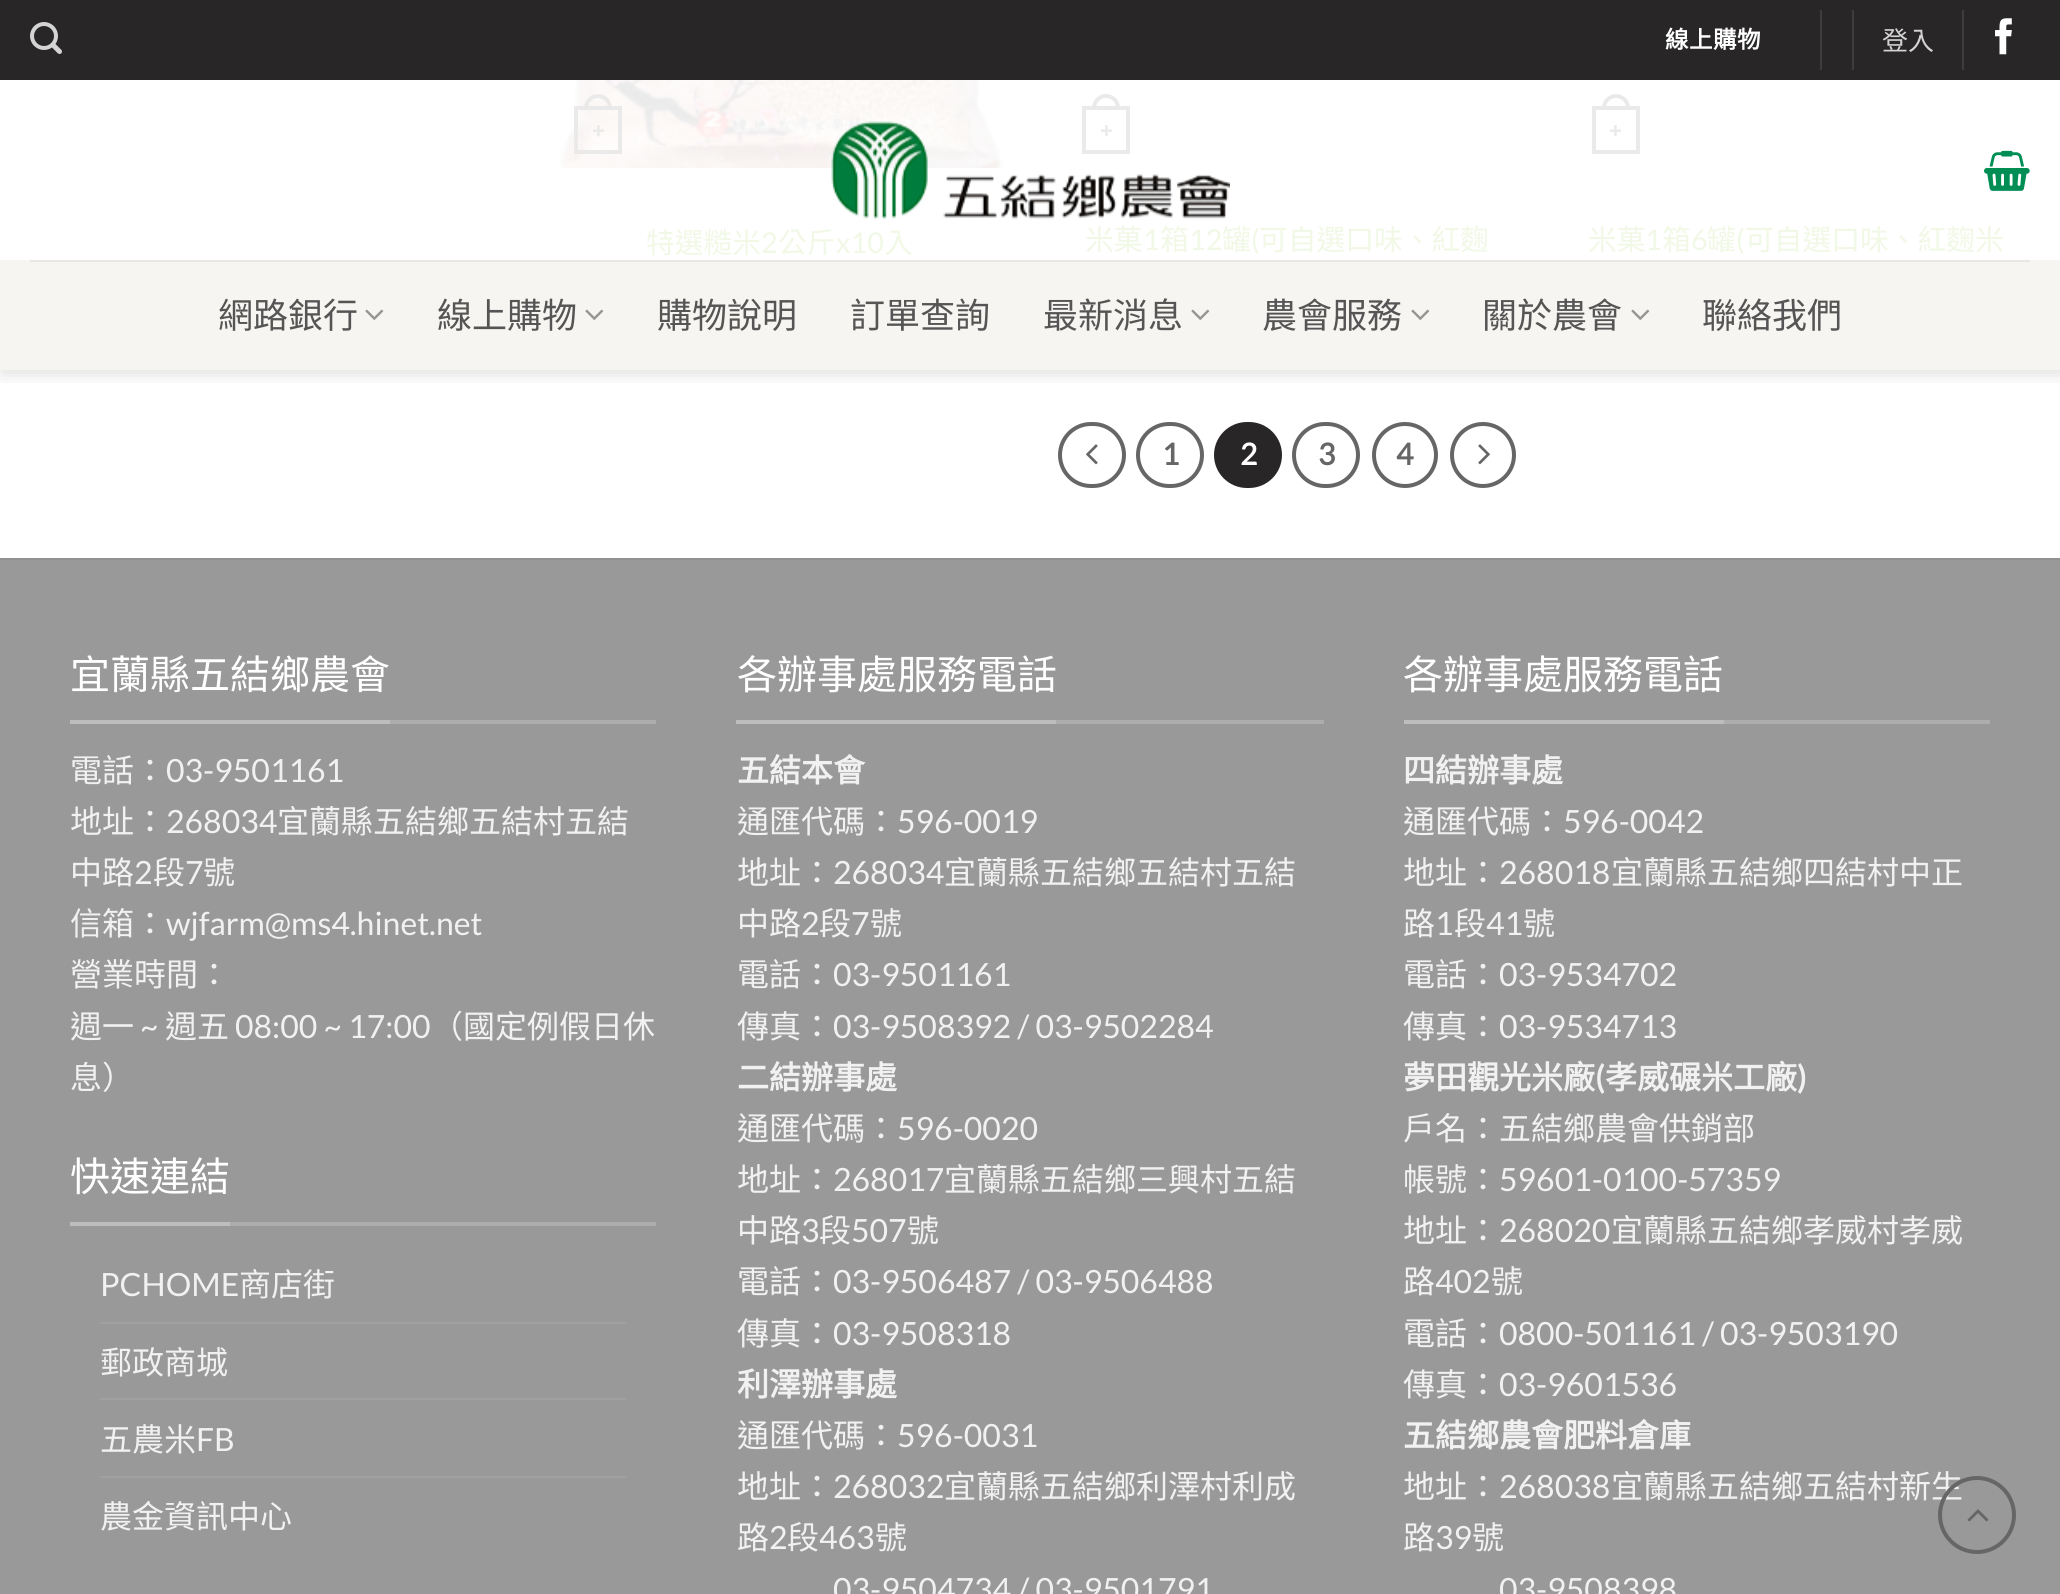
#include <cairo/cairo.h>
#include <math.h>
#include <stddef.h>

typedef struct { double x, y; const char *s; } line_t;
typedef struct { double x, y, w, h; unsigned color; } box_t;
static cairo_t *cr;

static void rgb(unsigned color)
{
	cairo_set_source_rgb(cr, (color >> 16) / 255.0, (color >> 8 & 255) / 255.0, (color & 255) / 255.0);
}

static void tracked(double x, double y, const char *s, double letter, double word)
{
	cairo_move_to(cr, x, y);
	while (*s) {
		char ch[5] = {0};
		int n = 0;
		do ch[n++] = *s++; while ((*s & 0xC0) == 0x80);
		cairo_show_text(cr, ch);
		cairo_rel_move_to(cr, letter + word * (*ch == ' '), 0);
	}
}

static void rrect(double x, double y, double w, double h, double r)
{
	cairo_new_sub_path(cr);
	cairo_arc(cr, x + w - r, y + h - r, r, 0, M_PI / 2);
	cairo_arc(cr, x + r, y + h - r, r, M_PI / 2, M_PI);
	cairo_arc(cr, x + r, y + r, r, M_PI, 1.5 * M_PI);
	cairo_arc(cr, x + w - r, y + r, r, 1.5 * M_PI, 2 * M_PI);
	cairo_close_path(cr);
}

static void soft_shadow(double x, double y, double w, double h, double r, double blur, double alpha)
{
	cairo_push_group_with_content(cr, CAIRO_CONTENT_ALPHA);
	cairo_set_operator(cr, CAIRO_OPERATOR_SOURCE);
	for (int i = 15; i >= -15 && fmin(w, h) + blur * i / 3 > 0; i -= 2) {
		double e = blur * i / 6;
		cairo_set_source_rgba(cr, 0, 0, 0, alpha * erfc((i - 1) / 8.5) / 2);
		rrect(x - e, y - e, w + 2 * e, h + 2 * e, fmax(0, fmin(r + e + blur * .6, fmin(w, h) / 2 + e)));
		cairo_fill(cr);
	}
	cairo_pattern_t *soft = cairo_pop_group(cr);
	cairo_mask(cr, soft);
	cairo_pattern_destroy(soft);
}

static void image(const char *path, double x, double y, double w, double h)
{
	cairo_surface_t *image = cairo_image_surface_create_from_png(path);
	cairo_save(cr);
	cairo_set_source_surface(cr, image, x, y);
	cairo_rectangle(cr, x, y, w, h);
	cairo_fill(cr);
	cairo_restore(cr);
	cairo_surface_destroy(image);
}

int main(void) {
	cairo_surface_t *surface = cairo_image_surface_create(CAIRO_FORMAT_RGB24, 2060, 1594);
	cr = cairo_create(surface);
	cairo_font_options_t *options = cairo_font_options_create();
	cairo_font_options_set_hint_metrics(options, CAIRO_HINT_METRICS_OFF);
	cairo_font_options_set_hint_style(options, CAIRO_HINT_STYLE_NONE);
	cairo_set_font_options(cr, options);
	cairo_set_miter_limit(cr, 4);
	rgb(0xffffff);
	cairo_paint(cr);
	image("img/6.png", 559, 80, 444, 88);
	cairo_rectangle(cr, 576, 108, 44, 44);
	cairo_set_source_rgba(cr, 0.918, 0.914, 0.914, 0.95);
	cairo_set_line_width(cr, 4);
	cairo_stroke(cr);
	cairo_set_fill_rule(cr, CAIRO_FILL_RULE_EVEN_ODD);
	cairo_new_path(cr);
	cairo_move_to(cr, 598, 94);
	cairo_curve_to(cr, 605.5, 94, 612, 100, 612, 108);
	cairo_line_to(cr, 612, 110);
	cairo_line_to(cr, 584, 110);
	cairo_line_to(cr, 584, 108);
	cairo_curve_to(cr, 584, 100, 590.5, 94, 598, 94);
	cairo_close_path(cr);
	cairo_move_to(cr, 598, 98);
	cairo_curve_to(cr, 603.5, 98, 608, 102.5, 608, 108);
	cairo_line_to(cr, 608, 110);
	cairo_line_to(cr, 588, 110);
	cairo_line_to(cr, 588, 108);
	cairo_curve_to(cr, 588, 102.5, 592.5, 98, 598, 98);
	cairo_close_path(cr);
	cairo_fill(cr);
	cairo_rectangle(cr, 1084, 108, 44, 44);
	rgb(0xebeaeb);
	cairo_stroke(cr);
	cairo_new_path(cr);
	cairo_move_to(cr, 1106, 94);
	cairo_curve_to(cr, 1113.5, 94, 1120, 100, 1120, 108);
	cairo_line_to(cr, 1120, 110);
	cairo_line_to(cr, 1092, 110);
	cairo_line_to(cr, 1092, 108);
	cairo_curve_to(cr, 1092, 100, 1098.5, 94, 1106, 94);
	cairo_close_path(cr);
	cairo_move_to(cr, 1106, 98);
	cairo_curve_to(cr, 1111.5, 98, 1116, 102.5, 1116, 108);
	cairo_line_to(cr, 1116, 110);
	cairo_line_to(cr, 1096, 110);
	cairo_line_to(cr, 1096, 108);
	cairo_curve_to(cr, 1096, 102.5, 1100.5, 98, 1106, 98);
	cairo_close_path(cr);
	cairo_fill(cr);
	cairo_rectangle(cr, 1594, 108, 44, 44);
	cairo_stroke(cr);
	cairo_new_path(cr);
	cairo_move_to(cr, 1616, 94);
	cairo_curve_to(cr, 1623.5, 94, 1630, 100, 1630, 108);
	cairo_line_to(cr, 1630, 110);
	cairo_line_to(cr, 1602, 110);
	cairo_line_to(cr, 1602, 108);
	cairo_curve_to(cr, 1602, 100, 1608.5, 94, 1616, 94);
	cairo_close_path(cr);
	cairo_move_to(cr, 1616, 98);
	cairo_curve_to(cr, 1621.5, 98, 1626, 102.5, 1626, 108);
	cairo_line_to(cr, 1626, 110);
	cairo_line_to(cr, 1606, 110);
	cairo_line_to(cr, 1606, 108);
	cairo_curve_to(cr, 1606, 102.5, 1610.5, 98, 1616, 98);
	cairo_close_path(cr);
	cairo_fill(cr);
	cairo_save(cr);
	cairo_set_fill_rule(cr, CAIRO_FILL_RULE_WINDING);
	cairo_rectangle(cr, 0, 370, 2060, 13);
	cairo_clip(cr);
	rgb(0x000000);
	soft_shadow(2, 2, 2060, 370, 0, 10, 0.15);
	cairo_restore(cr);
	rgb(0x282627);
	cairo_rectangle(cr, 0, 0, 2060, 80);
	cairo_fill(cr);
	image("img/1.png", 30, 22, 32, 32);
	{
		static const box_t items[] = {
			{1820, 10, 2, 60, 0x3e3c3d},
			{1852, 10, 2, 60, 0x3e3c3d},
			{1962, 10, 2, 60, 0x3e3c3d},
		};
		for (size_t i = 0; i < sizeof items / sizeof *items; i++) {
			rgb(items[i].color);
			cairo_rectangle(cr, items[i].x, items[i].y, items[i].w, items[i].h);
			cairo_fill(cr);
		}
	}
	image("img/2.png", 1995, 18, 17, 37);
	image("img/4.png", 1984, 150, 46, 41);
	rgb(0xf7f5f1);
	cairo_rectangle(cr, 0, 260, 2060, 110);
	cairo_fill(cr);
	rgb(0xe8e7e3);
	cairo_rectangle(cr, 30, 260, 2000, 2);
	cairo_fill(cr);
	image("img/5.png", 365, 309, 19, 11);
	image("img/5.png", 585, 309, 19, 11);
	image("img/5.png", 1191, 309, 19, 11);
	image("img/5.png", 1411, 309, 19, 11);
	image("img/5.png", 1631, 309, 19, 11);
	rrect(1060, 424, 64, 62, 31);
	rgb(0x666666);
	cairo_stroke(cr);
	image("img/7.png", 1086, 444, 12, 21);
	rrect(1138, 424, 64, 62, 31);
	cairo_stroke(cr);
	rgb(0x282627);
	rrect(1216, 424, 64, 62, 31);
	cairo_fill_preserve(cr);
	cairo_stroke(cr);
	rrect(1294, 424, 64, 62, 31);
	rgb(0x666666);
	cairo_stroke(cr);
	cairo_arc(cr, 1405, 455, 31, 0, 2 * M_PI);
	cairo_stroke(cr);
	cairo_arc(cr, 1483, 455, 31, 0, 2 * M_PI);
	cairo_stroke(cr);
	image("img/8.png", 1478, 444, 12, 21);
	{
		static const box_t items[] = {
			{0, 560, 2060, 1034, 0x999999},
			{0, 558, 2060, 2, 0x919191},
			{390, 720, 266, 4, 0xadadad},
			{70, 720, 320, 4, 0xbdbdbd},
			{230, 1222, 426, 4, 0xadadad},
			{70, 1222, 160, 4, 0xbdbdbd},
			{100, 1322, 526, 2, 0xa1a1a1},
			{100, 1398, 526, 2, 0xa1a1a1},
			{100, 1476, 526, 2, 0xa1a1a1},
			{1056, 720, 268, 4, 0xadadad},
			{736, 720, 320, 4, 0xbdbdbd},
			{1724, 720, 266, 4, 0xadadad},
			{1404, 720, 320, 4, 0xbdbdbd},
		};
		for (size_t i = 0; i < sizeof items / sizeof *items; i++) {
			rgb(items[i].color);
			cairo_rectangle(cr, items[i].x, items[i].y, items[i].w, items[i].h);
			cairo_fill(cr);
		}
	}
	cairo_select_font_face(cr, "Noto Sans CJK TC", CAIRO_FONT_SLANT_NORMAL, CAIRO_FONT_WEIGHT_BOLD);
	cairo_set_font_size(cr, 23.5);
	rgb(0xffffff);
	tracked(1665, 48, "線上購物", 0.5, 0);
	cairo_select_font_face(cr, "Noto Sans CJK TC", CAIRO_FONT_SLANT_NORMAL, CAIRO_FONT_WEIGHT_NORMAL);
	cairo_set_font_size(cr, 26);
	rgb(0xd4d4d4);
	cairo_move_to(cr, 1882, 50);
	cairo_show_text(cr, "登入");
	cairo_set_font_size(cr, 35);
	rgb(0x555555);
	{
		static const line_t items[] = {
			{218, 328, "網路銀行"},
			{437, 328, "線上購物"},
			{657, 328, "購物說明"},
			{850, 328, "訂單查詢"},
			{1043, 328, "最新消息"},
			{1262, 328, "農會服務"},
			{1482, 328, "關於農會"},
			{1702, 328, "聯絡我們"},
		};
		for (size_t i = 0; i < sizeof items / sizeof *items; i++) {
			cairo_move_to(cr, items[i].x, items[i].y);
			cairo_show_text(cr, items[i].s);
		}
	}
	cairo_select_font_face(cr, "Liberation Sans", CAIRO_FONT_SLANT_NORMAL, CAIRO_FONT_WEIGHT_BOLD);
	cairo_set_font_size(cr, 22);
	rgb(0xeaeaea);
	cairo_move_to(cr, 592, 138);
	cairo_show_text(cr, "+");
	cairo_select_font_face(cr, "Noto Sans CJK TC", CAIRO_FONT_SLANT_NORMAL, CAIRO_FONT_WEIGHT_NORMAL);
	cairo_set_font_size(cr, 28.75);
	rgb(0xf1f8e6);
	cairo_move_to(cr, 646, 253);
	cairo_show_text(cr, "特選糙米");
	cairo_select_font_face(cr, "Lato", CAIRO_FONT_SLANT_NORMAL, CAIRO_FONT_WEIGHT_NORMAL);
	cairo_move_to(cr, 761, 253);
	cairo_show_text(cr, "2");
	cairo_select_font_face(cr, "Noto Sans CJK TC", CAIRO_FONT_SLANT_NORMAL, CAIRO_FONT_WEIGHT_NORMAL);
	cairo_move_to(cr, 778, 253);
	cairo_show_text(cr, "公斤");
	cairo_select_font_face(cr, "Lato", CAIRO_FONT_SLANT_NORMAL, CAIRO_FONT_WEIGHT_NORMAL);
	cairo_move_to(cr, 836, 253);
	cairo_show_text(cr, "x10");
	cairo_select_font_face(cr, "Noto Sans CJK TC", CAIRO_FONT_SLANT_NORMAL, CAIRO_FONT_WEIGHT_NORMAL);
	cairo_move_to(cr, 884, 253);
	cairo_show_text(cr, "入");
	cairo_select_font_face(cr, "Liberation Sans", CAIRO_FONT_SLANT_NORMAL, CAIRO_FONT_WEIGHT_BOLD);
	cairo_set_font_size(cr, 22);
	rgb(0xeaeaea);
	cairo_move_to(cr, 1100, 138);
	cairo_show_text(cr, "+");
	image("img/3.png", 831, 121, 399, 99);
	cairo_select_font_face(cr, "Noto Sans CJK TC", CAIRO_FONT_SLANT_NORMAL, CAIRO_FONT_WEIGHT_NORMAL);
	cairo_set_font_size(cr, 28.75);
	rgb(0xf1f8e6);
	cairo_move_to(cr, 1085, 250);
	cairo_show_text(cr, "米菓");
	cairo_select_font_face(cr, "Lato", CAIRO_FONT_SLANT_NORMAL, CAIRO_FONT_WEIGHT_NORMAL);
	cairo_move_to(cr, 1143, 250);
	cairo_show_text(cr, "1");
	cairo_select_font_face(cr, "Noto Sans CJK TC", CAIRO_FONT_SLANT_NORMAL, CAIRO_FONT_WEIGHT_NORMAL);
	cairo_move_to(cr, 1160, 250);
	cairo_show_text(cr, "箱");
	cairo_select_font_face(cr, "Lato", CAIRO_FONT_SLANT_NORMAL, CAIRO_FONT_WEIGHT_NORMAL);
	cairo_move_to(cr, 1189, 250);
	cairo_show_text(cr, "12");
	cairo_select_font_face(cr, "Noto Sans CJK TC", CAIRO_FONT_SLANT_NORMAL, CAIRO_FONT_WEIGHT_NORMAL);
	cairo_move_to(cr, 1222, 250);
	cairo_show_text(cr, "罐");
	cairo_select_font_face(cr, "Lato", CAIRO_FONT_SLANT_NORMAL, CAIRO_FONT_WEIGHT_NORMAL);
	cairo_move_to(cr, 1251, 250);
	cairo_show_text(cr, "(");
	cairo_select_font_face(cr, "Noto Sans CJK TC", CAIRO_FONT_SLANT_NORMAL, CAIRO_FONT_WEIGHT_NORMAL);
	cairo_move_to(cr, 1259, 250);
	cairo_show_text(cr, "可自選口味、紅麴");
	cairo_select_font_face(cr, "Liberation Sans", CAIRO_FONT_SLANT_NORMAL, CAIRO_FONT_WEIGHT_BOLD);
	cairo_set_font_size(cr, 22);
	rgb(0xeaeaea);
	cairo_move_to(cr, 1609, 138);
	cairo_show_text(cr, "+");
	cairo_select_font_face(cr, "Noto Sans CJK TC", CAIRO_FONT_SLANT_NORMAL, CAIRO_FONT_WEIGHT_NORMAL);
	cairo_set_font_size(cr, 28.75);
	rgb(0xf1f8e6);
	cairo_move_to(cr, 1588, 250);
	cairo_show_text(cr, "米菓");
	cairo_select_font_face(cr, "Lato", CAIRO_FONT_SLANT_NORMAL, CAIRO_FONT_WEIGHT_NORMAL);
	cairo_move_to(cr, 1645, 250);
	cairo_show_text(cr, "1");
	cairo_select_font_face(cr, "Noto Sans CJK TC", CAIRO_FONT_SLANT_NORMAL, CAIRO_FONT_WEIGHT_NORMAL);
	cairo_move_to(cr, 1662, 250);
	cairo_show_text(cr, "箱");
	cairo_select_font_face(cr, "Lato", CAIRO_FONT_SLANT_NORMAL, CAIRO_FONT_WEIGHT_NORMAL);
	cairo_move_to(cr, 1691, 250);
	cairo_show_text(cr, "6");
	cairo_select_font_face(cr, "Noto Sans CJK TC", CAIRO_FONT_SLANT_NORMAL, CAIRO_FONT_WEIGHT_NORMAL);
	cairo_move_to(cr, 1707, 250);
	cairo_show_text(cr, "罐");
	cairo_select_font_face(cr, "Lato", CAIRO_FONT_SLANT_NORMAL, CAIRO_FONT_WEIGHT_NORMAL);
	cairo_move_to(cr, 1736, 250);
	cairo_show_text(cr, "(");
	cairo_select_font_face(cr, "Noto Sans CJK TC", CAIRO_FONT_SLANT_NORMAL, CAIRO_FONT_WEIGHT_NORMAL);
	cairo_move_to(cr, 1745, 250);
	cairo_show_text(cr, "可自選口味、紅麴米");
	cairo_select_font_face(cr, "Lato", CAIRO_FONT_SLANT_NORMAL, CAIRO_FONT_WEIGHT_BOLD);
	cairo_set_font_size(cr, 30);
	rgb(0x666666);
	cairo_move_to(cr, 1162, 465);
	cairo_show_text(cr, "1");
	rgb(0xffffff);
	cairo_move_to(cr, 1240, 465);
	cairo_show_text(cr, "2");
	rgb(0x666666);
	cairo_move_to(cr, 1318, 465);
	cairo_show_text(cr, "3");
	cairo_move_to(cr, 1396, 465);
	cairo_show_text(cr, "4");
	cairo_select_font_face(cr, "Noto Sans CJK TC", CAIRO_FONT_SLANT_NORMAL, CAIRO_FONT_WEIGHT_NORMAL);
	cairo_set_font_size(cr, 40);
	rgb(0xffffff);
	cairo_move_to(cr, 70, 689);
	cairo_show_text(cr, "宜蘭縣五結鄉農會");
	cairo_set_font_size(cr, 32);
	rgb(0xf1f1f1);
	cairo_move_to(cr, 70, 782);
	cairo_show_text(cr, "電話：");
	cairo_select_font_face(cr, "Lato", CAIRO_FONT_SLANT_NORMAL, CAIRO_FONT_WEIGHT_NORMAL);
	cairo_move_to(cr, 166, 782);
	cairo_show_text(cr, "03-9501161");
	cairo_select_font_face(cr, "Noto Sans CJK TC", CAIRO_FONT_SLANT_NORMAL, CAIRO_FONT_WEIGHT_NORMAL);
	cairo_move_to(cr, 70, 833);
	cairo_show_text(cr, "地址：");
	cairo_select_font_face(cr, "Lato", CAIRO_FONT_SLANT_NORMAL, CAIRO_FONT_WEIGHT_NORMAL);
	cairo_move_to(cr, 166, 833);
	cairo_show_text(cr, "268034");
	cairo_select_font_face(cr, "Noto Sans CJK TC", CAIRO_FONT_SLANT_NORMAL, CAIRO_FONT_WEIGHT_NORMAL);
	cairo_move_to(cr, 277, 833);
	cairo_show_text(cr, "宜蘭縣五結鄉五結村五結");
	cairo_move_to(cr, 70, 884);
	cairo_show_text(cr, "中路");
	cairo_select_font_face(cr, "Lato", CAIRO_FONT_SLANT_NORMAL, CAIRO_FONT_WEIGHT_NORMAL);
	cairo_move_to(cr, 134, 884);
	cairo_show_text(cr, "2");
	cairo_select_font_face(cr, "Noto Sans CJK TC", CAIRO_FONT_SLANT_NORMAL, CAIRO_FONT_WEIGHT_NORMAL);
	cairo_move_to(cr, 153, 884);
	cairo_show_text(cr, "段");
	cairo_select_font_face(cr, "Lato", CAIRO_FONT_SLANT_NORMAL, CAIRO_FONT_WEIGHT_NORMAL);
	cairo_move_to(cr, 185, 884);
	cairo_show_text(cr, "7");
	cairo_select_font_face(cr, "Noto Sans CJK TC", CAIRO_FONT_SLANT_NORMAL, CAIRO_FONT_WEIGHT_NORMAL);
	cairo_move_to(cr, 203, 884);
	cairo_show_text(cr, "號");
	cairo_move_to(cr, 70, 935);
	cairo_show_text(cr, "信箱：");
	cairo_select_font_face(cr, "Lato", CAIRO_FONT_SLANT_NORMAL, CAIRO_FONT_WEIGHT_NORMAL);
	cairo_move_to(cr, 166, 935);
	cairo_show_text(cr, "wjfarm@ms4.hinet.net");
	cairo_select_font_face(cr, "Noto Sans CJK TC", CAIRO_FONT_SLANT_NORMAL, CAIRO_FONT_WEIGHT_NORMAL);
	cairo_move_to(cr, 70, 986);
	cairo_show_text(cr, "營業時間：");
	cairo_move_to(cr, 70, 1038);
	cairo_show_text(cr, "週一");
	cairo_select_font_face(cr, "Lato", CAIRO_FONT_SLANT_NORMAL, CAIRO_FONT_WEIGHT_NORMAL);
	cairo_move_to(cr, 140, 1038);
	cairo_show_text(cr, "~");
	cairo_select_font_face(cr, "Noto Sans CJK TC", CAIRO_FONT_SLANT_NORMAL, CAIRO_FONT_WEIGHT_NORMAL);
	cairo_move_to(cr, 165, 1038);
	cairo_show_text(cr, "週五");
	cairo_select_font_face(cr, "Lato", CAIRO_FONT_SLANT_NORMAL, CAIRO_FONT_WEIGHT_NORMAL);
	cairo_move_to(cr, 235, 1038);
	cairo_show_text(cr, "08:00 ~ 17:00");
	cairo_select_font_face(cr, "Noto Sans CJK TC", CAIRO_FONT_SLANT_NORMAL, CAIRO_FONT_WEIGHT_NORMAL);
	cairo_move_to(cr, 431, 1038);
	cairo_show_text(cr, "（國定例假日休");
	cairo_move_to(cr, 70, 1089);
	cairo_show_text(cr, "息）");
	cairo_set_font_size(cr, 40);
	rgb(0xffffff);
	cairo_move_to(cr, 70, 1191);
	cairo_show_text(cr, "快速連結");
	cairo_select_font_face(cr, "Lato", CAIRO_FONT_SLANT_NORMAL, CAIRO_FONT_WEIGHT_NORMAL);
	cairo_set_font_size(cr, 32);
	rgb(0xf1f1f1);
	cairo_move_to(cr, 100, 1296);
	cairo_show_text(cr, "PCHOME");
	cairo_select_font_face(cr, "Noto Sans CJK TC", CAIRO_FONT_SLANT_NORMAL, CAIRO_FONT_WEIGHT_NORMAL);
	{
		static const line_t items[] = {
			{239, 1296, "商店街"},
			{100, 1374, "郵政商城"},
			{100, 1451, "五農米"},
		};
		for (size_t i = 0; i < sizeof items / sizeof *items; i++) {
			cairo_move_to(cr, items[i].x, items[i].y);
			cairo_show_text(cr, items[i].s);
		}
	}
	cairo_select_font_face(cr, "Lato", CAIRO_FONT_SLANT_NORMAL, CAIRO_FONT_WEIGHT_NORMAL);
	cairo_move_to(cr, 196, 1451);
	cairo_show_text(cr, "FB");
	cairo_select_font_face(cr, "Noto Sans CJK TC", CAIRO_FONT_SLANT_NORMAL, CAIRO_FONT_WEIGHT_NORMAL);
	cairo_move_to(cr, 100, 1528);
	cairo_show_text(cr, "農金資訊中心");
	cairo_set_font_size(cr, 40);
	rgb(0xffffff);
	cairo_move_to(cr, 737, 689);
	cairo_show_text(cr, "各辦事處服務電話");
	cairo_select_font_face(cr, "Noto Sans CJK TC", CAIRO_FONT_SLANT_NORMAL, CAIRO_FONT_WEIGHT_BOLD);
	cairo_set_font_size(cr, 32);
	rgb(0xf1f1f1);
	cairo_move_to(cr, 737, 782);
	cairo_show_text(cr, "五結本會");
	cairo_select_font_face(cr, "Noto Sans CJK TC", CAIRO_FONT_SLANT_NORMAL, CAIRO_FONT_WEIGHT_NORMAL);
	cairo_move_to(cr, 737, 833);
	cairo_show_text(cr, "通匯代碼：");
	cairo_select_font_face(cr, "Lato", CAIRO_FONT_SLANT_NORMAL, CAIRO_FONT_WEIGHT_NORMAL);
	cairo_move_to(cr, 897, 833);
	cairo_show_text(cr, "596-0019");
	cairo_select_font_face(cr, "Noto Sans CJK TC", CAIRO_FONT_SLANT_NORMAL, CAIRO_FONT_WEIGHT_NORMAL);
	cairo_move_to(cr, 737, 884);
	cairo_show_text(cr, "地址：");
	cairo_select_font_face(cr, "Lato", CAIRO_FONT_SLANT_NORMAL, CAIRO_FONT_WEIGHT_NORMAL);
	cairo_move_to(cr, 833, 884);
	cairo_show_text(cr, "268034");
	cairo_select_font_face(cr, "Noto Sans CJK TC", CAIRO_FONT_SLANT_NORMAL, CAIRO_FONT_WEIGHT_NORMAL);
	cairo_move_to(cr, 944, 884);
	cairo_show_text(cr, "宜蘭縣五結鄉五結村五結");
	cairo_move_to(cr, 737, 935);
	cairo_show_text(cr, "中路");
	cairo_select_font_face(cr, "Lato", CAIRO_FONT_SLANT_NORMAL, CAIRO_FONT_WEIGHT_NORMAL);
	cairo_move_to(cr, 801, 935);
	cairo_show_text(cr, "2");
	cairo_select_font_face(cr, "Noto Sans CJK TC", CAIRO_FONT_SLANT_NORMAL, CAIRO_FONT_WEIGHT_NORMAL);
	cairo_move_to(cr, 819, 935);
	cairo_show_text(cr, "段");
	cairo_select_font_face(cr, "Lato", CAIRO_FONT_SLANT_NORMAL, CAIRO_FONT_WEIGHT_NORMAL);
	cairo_move_to(cr, 851, 935);
	cairo_show_text(cr, "7");
	cairo_select_font_face(cr, "Noto Sans CJK TC", CAIRO_FONT_SLANT_NORMAL, CAIRO_FONT_WEIGHT_NORMAL);
	cairo_move_to(cr, 870, 935);
	cairo_show_text(cr, "號");
	cairo_move_to(cr, 737, 986);
	cairo_show_text(cr, "電話：");
	cairo_select_font_face(cr, "Lato", CAIRO_FONT_SLANT_NORMAL, CAIRO_FONT_WEIGHT_NORMAL);
	cairo_move_to(cr, 833, 986);
	cairo_show_text(cr, "03-9501161");
	cairo_select_font_face(cr, "Noto Sans CJK TC", CAIRO_FONT_SLANT_NORMAL, CAIRO_FONT_WEIGHT_NORMAL);
	cairo_move_to(cr, 737, 1038);
	cairo_show_text(cr, "傳真：");
	cairo_select_font_face(cr, "Lato", CAIRO_FONT_SLANT_NORMAL, CAIRO_FONT_WEIGHT_NORMAL);
	cairo_move_to(cr, 833, 1038);
	cairo_show_text(cr, "03-9508392 / 03-9502284");
	cairo_select_font_face(cr, "Noto Sans CJK TC", CAIRO_FONT_SLANT_NORMAL, CAIRO_FONT_WEIGHT_BOLD);
	cairo_move_to(cr, 737, 1089);
	cairo_show_text(cr, "二結辦事處");
	cairo_select_font_face(cr, "Noto Sans CJK TC", CAIRO_FONT_SLANT_NORMAL, CAIRO_FONT_WEIGHT_NORMAL);
	cairo_move_to(cr, 737, 1140);
	cairo_show_text(cr, "通匯代碼：");
	cairo_select_font_face(cr, "Lato", CAIRO_FONT_SLANT_NORMAL, CAIRO_FONT_WEIGHT_NORMAL);
	cairo_move_to(cr, 897, 1140);
	cairo_show_text(cr, "596-0020");
	cairo_select_font_face(cr, "Noto Sans CJK TC", CAIRO_FONT_SLANT_NORMAL, CAIRO_FONT_WEIGHT_NORMAL);
	cairo_move_to(cr, 737, 1191);
	cairo_show_text(cr, "地址：");
	cairo_select_font_face(cr, "Lato", CAIRO_FONT_SLANT_NORMAL, CAIRO_FONT_WEIGHT_NORMAL);
	cairo_move_to(cr, 833, 1191);
	cairo_show_text(cr, "268017");
	cairo_select_font_face(cr, "Noto Sans CJK TC", CAIRO_FONT_SLANT_NORMAL, CAIRO_FONT_WEIGHT_NORMAL);
	cairo_move_to(cr, 944, 1191);
	cairo_show_text(cr, "宜蘭縣五結鄉三興村五結");
	cairo_move_to(cr, 737, 1242);
	cairo_show_text(cr, "中路");
	cairo_select_font_face(cr, "Lato", CAIRO_FONT_SLANT_NORMAL, CAIRO_FONT_WEIGHT_NORMAL);
	cairo_move_to(cr, 801, 1242);
	cairo_show_text(cr, "3");
	cairo_select_font_face(cr, "Noto Sans CJK TC", CAIRO_FONT_SLANT_NORMAL, CAIRO_FONT_WEIGHT_NORMAL);
	cairo_move_to(cr, 819, 1242);
	cairo_show_text(cr, "段");
	cairo_select_font_face(cr, "Lato", CAIRO_FONT_SLANT_NORMAL, CAIRO_FONT_WEIGHT_NORMAL);
	cairo_move_to(cr, 851, 1242);
	cairo_show_text(cr, "507");
	cairo_select_font_face(cr, "Noto Sans CJK TC", CAIRO_FONT_SLANT_NORMAL, CAIRO_FONT_WEIGHT_NORMAL);
	cairo_move_to(cr, 907, 1242);
	cairo_show_text(cr, "號");
	cairo_move_to(cr, 737, 1293);
	cairo_show_text(cr, "電話：");
	cairo_select_font_face(cr, "Lato", CAIRO_FONT_SLANT_NORMAL, CAIRO_FONT_WEIGHT_NORMAL);
	cairo_move_to(cr, 833, 1293);
	cairo_show_text(cr, "03-9506487 / 03-9506488");
	cairo_select_font_face(cr, "Noto Sans CJK TC", CAIRO_FONT_SLANT_NORMAL, CAIRO_FONT_WEIGHT_NORMAL);
	cairo_move_to(cr, 737, 1345);
	cairo_show_text(cr, "傳真：");
	cairo_select_font_face(cr, "Lato", CAIRO_FONT_SLANT_NORMAL, CAIRO_FONT_WEIGHT_NORMAL);
	cairo_move_to(cr, 833, 1345);
	cairo_show_text(cr, "03-9508318");
	cairo_select_font_face(cr, "Noto Sans CJK TC", CAIRO_FONT_SLANT_NORMAL, CAIRO_FONT_WEIGHT_BOLD);
	cairo_move_to(cr, 737, 1396);
	cairo_show_text(cr, "利澤辦事處");
	cairo_select_font_face(cr, "Noto Sans CJK TC", CAIRO_FONT_SLANT_NORMAL, CAIRO_FONT_WEIGHT_NORMAL);
	cairo_move_to(cr, 737, 1447);
	cairo_show_text(cr, "通匯代碼：");
	cairo_select_font_face(cr, "Lato", CAIRO_FONT_SLANT_NORMAL, CAIRO_FONT_WEIGHT_NORMAL);
	cairo_move_to(cr, 897, 1447);
	cairo_show_text(cr, "596-0031");
	cairo_select_font_face(cr, "Noto Sans CJK TC", CAIRO_FONT_SLANT_NORMAL, CAIRO_FONT_WEIGHT_NORMAL);
	cairo_move_to(cr, 737, 1498);
	cairo_show_text(cr, "地址：");
	cairo_select_font_face(cr, "Lato", CAIRO_FONT_SLANT_NORMAL, CAIRO_FONT_WEIGHT_NORMAL);
	cairo_move_to(cr, 833, 1498);
	cairo_show_text(cr, "268032");
	cairo_select_font_face(cr, "Noto Sans CJK TC", CAIRO_FONT_SLANT_NORMAL, CAIRO_FONT_WEIGHT_NORMAL);
	cairo_move_to(cr, 944, 1498);
	cairo_show_text(cr, "宜蘭縣五結鄉利澤村利成");
	cairo_move_to(cr, 737, 1549);
	cairo_show_text(cr, "路");
	cairo_select_font_face(cr, "Lato", CAIRO_FONT_SLANT_NORMAL, CAIRO_FONT_WEIGHT_NORMAL);
	cairo_move_to(cr, 769, 1549);
	cairo_show_text(cr, "2");
	cairo_select_font_face(cr, "Noto Sans CJK TC", CAIRO_FONT_SLANT_NORMAL, CAIRO_FONT_WEIGHT_NORMAL);
	cairo_move_to(cr, 787, 1549);
	cairo_show_text(cr, "段");
	cairo_select_font_face(cr, "Lato", CAIRO_FONT_SLANT_NORMAL, CAIRO_FONT_WEIGHT_NORMAL);
	cairo_move_to(cr, 819, 1549);
	cairo_show_text(cr, "463");
	cairo_select_font_face(cr, "Noto Sans CJK TC", CAIRO_FONT_SLANT_NORMAL, CAIRO_FONT_WEIGHT_NORMAL);
	cairo_move_to(cr, 875, 1549);
	cairo_show_text(cr, "號");
	cairo_select_font_face(cr, "Lato", CAIRO_FONT_SLANT_NORMAL, CAIRO_FONT_WEIGHT_NORMAL);
	cairo_move_to(cr, 833, 1601);
	cairo_show_text(cr, "03-9504734 / 03-9501791");
	cairo_select_font_face(cr, "Noto Sans CJK TC", CAIRO_FONT_SLANT_NORMAL, CAIRO_FONT_WEIGHT_NORMAL);
	cairo_set_font_size(cr, 40);
	rgb(0xffffff);
	cairo_move_to(cr, 1403, 689);
	cairo_show_text(cr, "各辦事處服務電話");
	cairo_select_font_face(cr, "Noto Sans CJK TC", CAIRO_FONT_SLANT_NORMAL, CAIRO_FONT_WEIGHT_BOLD);
	cairo_set_font_size(cr, 32);
	rgb(0xf1f1f1);
	cairo_move_to(cr, 1403, 782);
	cairo_show_text(cr, "四結辦事處");
	cairo_select_font_face(cr, "Noto Sans CJK TC", CAIRO_FONT_SLANT_NORMAL, CAIRO_FONT_WEIGHT_NORMAL);
	cairo_move_to(cr, 1403, 833);
	cairo_show_text(cr, "通匯代碼：");
	cairo_select_font_face(cr, "Lato", CAIRO_FONT_SLANT_NORMAL, CAIRO_FONT_WEIGHT_NORMAL);
	cairo_move_to(cr, 1563, 833);
	cairo_show_text(cr, "596-0042");
	cairo_select_font_face(cr, "Noto Sans CJK TC", CAIRO_FONT_SLANT_NORMAL, CAIRO_FONT_WEIGHT_NORMAL);
	cairo_move_to(cr, 1403, 884);
	cairo_show_text(cr, "地址：");
	cairo_select_font_face(cr, "Lato", CAIRO_FONT_SLANT_NORMAL, CAIRO_FONT_WEIGHT_NORMAL);
	cairo_move_to(cr, 1499, 884);
	cairo_show_text(cr, "268018");
	cairo_select_font_face(cr, "Noto Sans CJK TC", CAIRO_FONT_SLANT_NORMAL, CAIRO_FONT_WEIGHT_NORMAL);
	cairo_move_to(cr, 1611, 884);
	cairo_show_text(cr, "宜蘭縣五結鄉四結村中正");
	cairo_move_to(cr, 1403, 935);
	cairo_show_text(cr, "路");
	cairo_select_font_face(cr, "Lato", CAIRO_FONT_SLANT_NORMAL, CAIRO_FONT_WEIGHT_NORMAL);
	cairo_move_to(cr, 1435, 935);
	cairo_show_text(cr, "1");
	cairo_select_font_face(cr, "Noto Sans CJK TC", CAIRO_FONT_SLANT_NORMAL, CAIRO_FONT_WEIGHT_NORMAL);
	cairo_move_to(cr, 1454, 935);
	cairo_show_text(cr, "段");
	cairo_select_font_face(cr, "Lato", CAIRO_FONT_SLANT_NORMAL, CAIRO_FONT_WEIGHT_NORMAL);
	cairo_move_to(cr, 1486, 935);
	cairo_show_text(cr, "41");
	cairo_select_font_face(cr, "Noto Sans CJK TC", CAIRO_FONT_SLANT_NORMAL, CAIRO_FONT_WEIGHT_NORMAL);
	cairo_move_to(cr, 1523, 935);
	cairo_show_text(cr, "號");
	cairo_move_to(cr, 1403, 986);
	cairo_show_text(cr, "電話：");
	cairo_select_font_face(cr, "Lato", CAIRO_FONT_SLANT_NORMAL, CAIRO_FONT_WEIGHT_NORMAL);
	cairo_move_to(cr, 1499, 986);
	cairo_show_text(cr, "03-9534702");
	cairo_select_font_face(cr, "Noto Sans CJK TC", CAIRO_FONT_SLANT_NORMAL, CAIRO_FONT_WEIGHT_NORMAL);
	cairo_move_to(cr, 1403, 1038);
	cairo_show_text(cr, "傳真：");
	cairo_select_font_face(cr, "Lato", CAIRO_FONT_SLANT_NORMAL, CAIRO_FONT_WEIGHT_NORMAL);
	cairo_move_to(cr, 1499, 1038);
	cairo_show_text(cr, "03-9534713");
	cairo_select_font_face(cr, "Noto Sans CJK TC", CAIRO_FONT_SLANT_NORMAL, CAIRO_FONT_WEIGHT_BOLD);
	cairo_move_to(cr, 1403, 1089);
	cairo_show_text(cr, "夢田觀光米廠");
	cairo_select_font_face(cr, "Lato", CAIRO_FONT_SLANT_NORMAL, CAIRO_FONT_WEIGHT_BOLD);
	cairo_move_to(cr, 1595, 1089);
	cairo_show_text(cr, "(");
	cairo_select_font_face(cr, "Noto Sans CJK TC", CAIRO_FONT_SLANT_NORMAL, CAIRO_FONT_WEIGHT_BOLD);
	cairo_move_to(cr, 1605, 1089);
	cairo_show_text(cr, "孝威碾米工廠");
	cairo_select_font_face(cr, "Lato", CAIRO_FONT_SLANT_NORMAL, CAIRO_FONT_WEIGHT_BOLD);
	cairo_move_to(cr, 1797, 1089);
	cairo_show_text(cr, ")");
	cairo_select_font_face(cr, "Noto Sans CJK TC", CAIRO_FONT_SLANT_NORMAL, CAIRO_FONT_WEIGHT_NORMAL);
	cairo_move_to(cr, 1403, 1140);
	cairo_show_text(cr, "戶名：五結鄉農會供銷部");
	cairo_move_to(cr, 1403, 1191);
	cairo_show_text(cr, "帳號：");
	cairo_select_font_face(cr, "Lato", CAIRO_FONT_SLANT_NORMAL, CAIRO_FONT_WEIGHT_NORMAL);
	cairo_move_to(cr, 1499, 1191);
	cairo_show_text(cr, "59601-0100-57359");
	cairo_select_font_face(cr, "Noto Sans CJK TC", CAIRO_FONT_SLANT_NORMAL, CAIRO_FONT_WEIGHT_NORMAL);
	cairo_move_to(cr, 1403, 1242);
	cairo_show_text(cr, "地址：");
	cairo_select_font_face(cr, "Lato", CAIRO_FONT_SLANT_NORMAL, CAIRO_FONT_WEIGHT_NORMAL);
	cairo_move_to(cr, 1499, 1242);
	cairo_show_text(cr, "268020");
	cairo_select_font_face(cr, "Noto Sans CJK TC", CAIRO_FONT_SLANT_NORMAL, CAIRO_FONT_WEIGHT_NORMAL);
	cairo_move_to(cr, 1611, 1242);
	cairo_show_text(cr, "宜蘭縣五結鄉孝威村孝威");
	cairo_move_to(cr, 1403, 1293);
	cairo_show_text(cr, "路");
	cairo_select_font_face(cr, "Lato", CAIRO_FONT_SLANT_NORMAL, CAIRO_FONT_WEIGHT_NORMAL);
	cairo_move_to(cr, 1435, 1293);
	cairo_show_text(cr, "402");
	cairo_select_font_face(cr, "Noto Sans CJK TC", CAIRO_FONT_SLANT_NORMAL, CAIRO_FONT_WEIGHT_NORMAL);
	cairo_move_to(cr, 1491, 1293);
	cairo_show_text(cr, "號");
	cairo_move_to(cr, 1403, 1345);
	cairo_show_text(cr, "電話：");
	cairo_select_font_face(cr, "Lato", CAIRO_FONT_SLANT_NORMAL, CAIRO_FONT_WEIGHT_NORMAL);
	cairo_move_to(cr, 1499, 1345);
	cairo_show_text(cr, "0800-501161 / 03-9503190");
	cairo_select_font_face(cr, "Noto Sans CJK TC", CAIRO_FONT_SLANT_NORMAL, CAIRO_FONT_WEIGHT_NORMAL);
	cairo_move_to(cr, 1403, 1396);
	cairo_show_text(cr, "傳真：");
	cairo_select_font_face(cr, "Lato", CAIRO_FONT_SLANT_NORMAL, CAIRO_FONT_WEIGHT_NORMAL);
	cairo_move_to(cr, 1499, 1396);
	cairo_show_text(cr, "03-9601536");
	cairo_select_font_face(cr, "Noto Sans CJK TC", CAIRO_FONT_SLANT_NORMAL, CAIRO_FONT_WEIGHT_BOLD);
	cairo_move_to(cr, 1403, 1447);
	cairo_show_text(cr, "五結鄉農會肥料倉庫");
	cairo_select_font_face(cr, "Noto Sans CJK TC", CAIRO_FONT_SLANT_NORMAL, CAIRO_FONT_WEIGHT_NORMAL);
	cairo_move_to(cr, 1403, 1498);
	cairo_show_text(cr, "地址：");
	cairo_select_font_face(cr, "Lato", CAIRO_FONT_SLANT_NORMAL, CAIRO_FONT_WEIGHT_NORMAL);
	cairo_move_to(cr, 1499, 1498);
	cairo_show_text(cr, "268038");
	cairo_select_font_face(cr, "Noto Sans CJK TC", CAIRO_FONT_SLANT_NORMAL, CAIRO_FONT_WEIGHT_NORMAL);
	cairo_move_to(cr, 1611, 1498);
	cairo_show_text(cr, "宜蘭縣五結鄉五結村新生");
	cairo_move_to(cr, 1403, 1549);
	cairo_show_text(cr, "路");
	cairo_select_font_face(cr, "Lato", CAIRO_FONT_SLANT_NORMAL, CAIRO_FONT_WEIGHT_NORMAL);
	cairo_move_to(cr, 1435, 1549);
	cairo_show_text(cr, "39");
	cairo_select_font_face(cr, "Noto Sans CJK TC", CAIRO_FONT_SLANT_NORMAL, CAIRO_FONT_WEIGHT_NORMAL);
	cairo_move_to(cr, 1472, 1549);
	cairo_show_text(cr, "號");
	cairo_select_font_face(cr, "Lato", CAIRO_FONT_SLANT_NORMAL, CAIRO_FONT_WEIGHT_NORMAL);
	cairo_move_to(cr, 1499, 1601);
	cairo_show_text(cr, "03-9508398");
	cairo_new_path(cr);
	cairo_arc(cr, 1977, 1515, 37, 0, 2 * M_PI);
	rgb(0x666666);
	cairo_stroke(cr);
	image("img/9.png", 1967, 1509, 22, 13);
	cairo_surface_write_to_png(surface, "page.png");
	cairo_font_options_destroy(options);
	cairo_destroy(cr);
	cairo_surface_destroy(surface);
	return 0;
}
